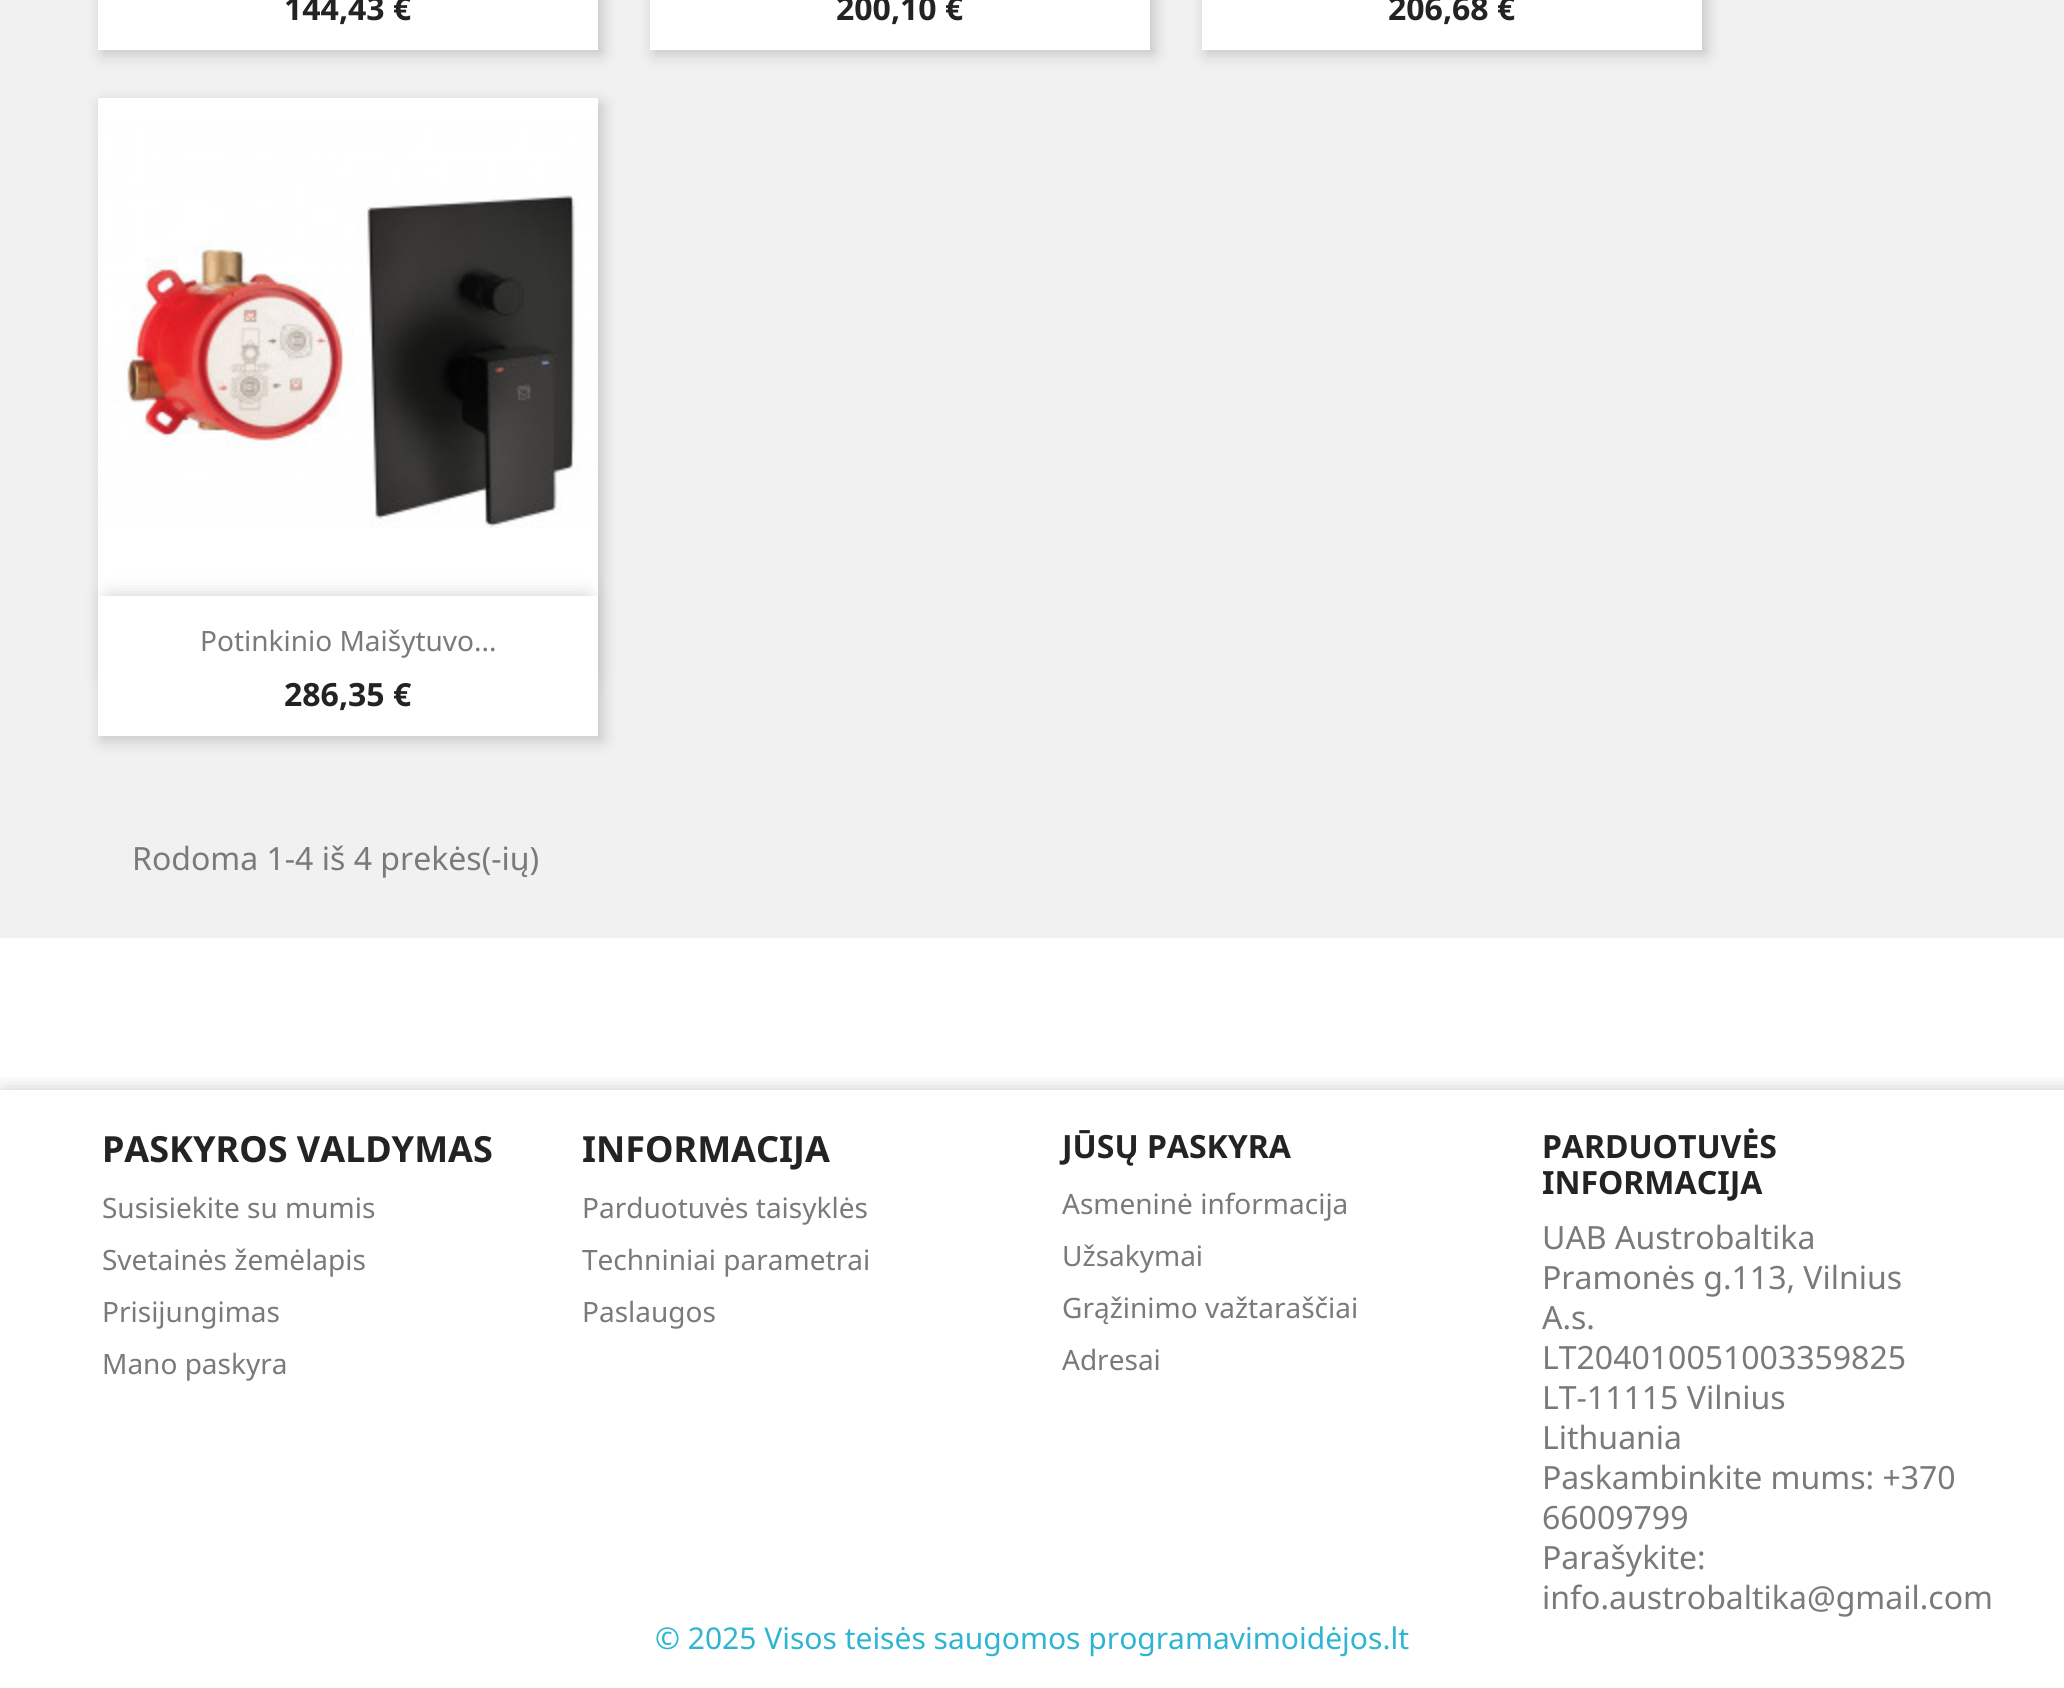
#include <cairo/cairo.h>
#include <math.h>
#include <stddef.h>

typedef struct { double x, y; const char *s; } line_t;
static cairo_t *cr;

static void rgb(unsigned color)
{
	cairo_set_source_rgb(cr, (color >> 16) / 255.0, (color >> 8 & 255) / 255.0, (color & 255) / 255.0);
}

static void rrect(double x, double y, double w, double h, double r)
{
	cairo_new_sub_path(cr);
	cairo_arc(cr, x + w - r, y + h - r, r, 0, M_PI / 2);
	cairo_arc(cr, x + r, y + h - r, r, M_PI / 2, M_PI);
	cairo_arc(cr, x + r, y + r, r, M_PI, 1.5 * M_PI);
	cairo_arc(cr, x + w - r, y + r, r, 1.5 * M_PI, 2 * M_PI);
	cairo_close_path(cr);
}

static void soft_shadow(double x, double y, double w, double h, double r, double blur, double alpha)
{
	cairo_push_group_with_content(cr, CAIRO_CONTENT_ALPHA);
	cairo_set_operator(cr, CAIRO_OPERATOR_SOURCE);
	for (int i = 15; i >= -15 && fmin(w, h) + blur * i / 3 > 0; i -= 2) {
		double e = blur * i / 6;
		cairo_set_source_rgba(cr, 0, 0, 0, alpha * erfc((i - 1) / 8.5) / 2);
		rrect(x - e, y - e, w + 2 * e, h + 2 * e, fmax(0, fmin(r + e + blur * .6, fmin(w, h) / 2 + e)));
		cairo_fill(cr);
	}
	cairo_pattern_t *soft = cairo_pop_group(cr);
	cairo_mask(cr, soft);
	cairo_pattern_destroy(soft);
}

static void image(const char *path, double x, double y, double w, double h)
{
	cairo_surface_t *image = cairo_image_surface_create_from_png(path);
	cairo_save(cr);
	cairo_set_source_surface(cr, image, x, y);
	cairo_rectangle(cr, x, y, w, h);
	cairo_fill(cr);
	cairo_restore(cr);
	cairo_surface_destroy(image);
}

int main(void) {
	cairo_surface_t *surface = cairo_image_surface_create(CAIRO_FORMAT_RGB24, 2064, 1688);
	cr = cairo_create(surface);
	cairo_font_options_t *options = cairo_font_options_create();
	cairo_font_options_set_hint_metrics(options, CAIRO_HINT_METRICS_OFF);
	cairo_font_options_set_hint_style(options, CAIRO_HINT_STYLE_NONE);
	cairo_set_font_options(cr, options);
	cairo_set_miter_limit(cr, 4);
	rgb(0xffffff);
	cairo_paint(cr);
	rgb(0xf1f1f1);
	cairo_rectangle(cr, 0, 0, 2064, 938);
	cairo_fill(cr);
	rgb(0x000000);
	soft_shadow(102, -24, 500, 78, 0, 8, 0.2);
	rgb(0xffffff);
	cairo_rectangle(cr, 98, 0, 500, 50);
	cairo_fill(cr);
	rgb(0x000000);
	soft_shadow(654, -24, 500, 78, 0, 8, 0.2);
	rgb(0xffffff);
	cairo_rectangle(cr, 650, 0, 500, 50);
	cairo_fill(cr);
	rgb(0x000000);
	soft_shadow(1206, -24, 500, 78, 0, 8, 0.2);
	rgb(0xffffff);
	cairo_rectangle(cr, 1202, 0, 500, 50);
	cairo_fill(cr);
	rgb(0x000000);
	soft_shadow(102, 104, 500, 636, 0, 8, 0.2);
	rgb(0xffffff);
	cairo_rectangle(cr, 98, 528, 500, 68);
	cairo_fill(cr);
	image("img/1.png", 98, 98, 500, 430);
	rgb(0x000000);
	soft_shadow(108, 596, 480, 80, 0, 10, 0.2);
	rgb(0xffffff);
	cairo_rectangle(cr, 98, 596, 500, 140);
	cairo_fill(cr);
	cairo_save(cr);
	cairo_rectangle(cr, 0, 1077, 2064, 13);
	cairo_clip(cr);
	rgb(0x000000);
	soft_shadow(4, 1094, 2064, 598, 0, 11, 0.3);
	cairo_restore(cr);
	cairo_select_font_face(cr, "Noto Sans", CAIRO_FONT_SLANT_NORMAL, CAIRO_FONT_WEIGHT_BOLD);
	cairo_set_font_size(cr, 32);
	rgb(0x232323);
	{
		static const line_t items[] = {
			{284, 20, "144,43 €"},
			{836, 20, "200,10 €"},
			{1388, 20, "206,68 €"},
		};
		for (size_t i = 0; i < sizeof items / sizeof *items; i++) {
			cairo_move_to(cr, items[i].x, items[i].y);
			cairo_show_text(cr, items[i].s);
		}
	}
	cairo_select_font_face(cr, "Noto Sans", CAIRO_FONT_SLANT_NORMAL, CAIRO_FONT_WEIGHT_NORMAL);
	cairo_set_font_size(cr, 28);
	rgb(0x7a7a7a);
	cairo_move_to(cr, 200, 651);
	cairo_show_text(cr, "Potinkinio Maišytuvo...");
	cairo_select_font_face(cr, "Noto Sans", CAIRO_FONT_SLANT_NORMAL, CAIRO_FONT_WEIGHT_BOLD);
	cairo_set_font_size(cr, 32);
	rgb(0x232323);
	cairo_move_to(cr, 284, 706);
	cairo_show_text(cr, "286,35 €");
	cairo_select_font_face(cr, "Noto Sans", CAIRO_FONT_SLANT_NORMAL, CAIRO_FONT_WEIGHT_NORMAL);
	rgb(0x7a7a7a);
	cairo_move_to(cr, 132, 870);
	cairo_show_text(cr, "Rodoma 1-4 iš 4 prekės(-ių)");
	cairo_select_font_face(cr, "Noto Sans", CAIRO_FONT_SLANT_NORMAL, CAIRO_FONT_WEIGHT_BOLD);
	cairo_set_font_size(cr, 36);
	rgb(0x232323);
	cairo_move_to(cr, 102, 1162);
	cairo_show_text(cr, "PASKYROS VALDYMAS");
	cairo_select_font_face(cr, "Noto Sans", CAIRO_FONT_SLANT_NORMAL, CAIRO_FONT_WEIGHT_NORMAL);
	cairo_set_font_size(cr, 28);
	rgb(0x7a7a7a);
	{
		static const line_t items[] = {
			{102, 1218, "Susisiekite su mumis"},
			{102, 1270, "Svetainės žemėlapis"},
			{102, 1322, "Prisijungimas"},
			{102, 1374, "Mano paskyra"},
		};
		for (size_t i = 0; i < sizeof items / sizeof *items; i++) {
			cairo_move_to(cr, items[i].x, items[i].y);
			cairo_show_text(cr, items[i].s);
		}
	}
	cairo_select_font_face(cr, "Noto Sans", CAIRO_FONT_SLANT_NORMAL, CAIRO_FONT_WEIGHT_BOLD);
	cairo_set_font_size(cr, 36);
	rgb(0x232323);
	cairo_move_to(cr, 582, 1162);
	cairo_show_text(cr, "INFORMACIJA");
	cairo_select_font_face(cr, "Noto Sans", CAIRO_FONT_SLANT_NORMAL, CAIRO_FONT_WEIGHT_NORMAL);
	cairo_set_font_size(cr, 28);
	rgb(0x7a7a7a);
	{
		static const line_t items[] = {
			{582, 1218, "Parduotuvės taisyklės"},
			{582, 1270, "Techniniai parametrai"},
			{582, 1322, "Paslaugos"},
		};
		for (size_t i = 0; i < sizeof items / sizeof *items; i++) {
			cairo_move_to(cr, items[i].x, items[i].y);
			cairo_show_text(cr, items[i].s);
		}
	}
	cairo_select_font_face(cr, "Noto Sans", CAIRO_FONT_SLANT_NORMAL, CAIRO_FONT_WEIGHT_BOLD);
	cairo_set_font_size(cr, 32);
	rgb(0x232323);
	cairo_move_to(cr, 1062, 1158);
	cairo_show_text(cr, "JŪSŲ PASKYRA");
	cairo_select_font_face(cr, "Noto Sans", CAIRO_FONT_SLANT_NORMAL, CAIRO_FONT_WEIGHT_NORMAL);
	cairo_set_font_size(cr, 28);
	rgb(0x7a7a7a);
	{
		static const line_t items[] = {
			{1062, 1214, "Asmeninė informacija"},
			{1062, 1266, "Užsakymai"},
			{1062, 1318, "Grąžinimo važtaraščiai"},
			{1062, 1370, "Adresai"},
		};
		for (size_t i = 0; i < sizeof items / sizeof *items; i++) {
			cairo_move_to(cr, items[i].x, items[i].y);
			cairo_show_text(cr, items[i].s);
		}
	}
	cairo_select_font_face(cr, "Noto Sans", CAIRO_FONT_SLANT_NORMAL, CAIRO_FONT_WEIGHT_BOLD);
	cairo_set_font_size(cr, 32);
	rgb(0x232323);
	cairo_move_to(cr, 1542, 1158);
	cairo_show_text(cr, "PARDUOTUVĖS");
	cairo_move_to(cr, 1542, 1194);
	cairo_show_text(cr, "INFORMACIJA");
	cairo_select_font_face(cr, "Noto Sans", CAIRO_FONT_SLANT_NORMAL, CAIRO_FONT_WEIGHT_NORMAL);
	rgb(0x7a7a7a);
	{
		static const line_t items[] = {
			{1542, 1249, "UAB Austrobaltika"},
			{1542, 1289, "Pramonės g.113, Vilnius"},
			{1542, 1329, "A.s."},
			{1542, 1369, "LT204010051003359825"},
			{1542, 1409, "LT-11115 Vilnius"},
			{1542, 1449, "Lithuania"},
			{1542, 1489, "Paskambinkite mums: +370"},
			{1542, 1529, "66009799"},
			{1542, 1569, "Parašykite:"},
			{1542, 1609, "info.austrobaltika@gmail.com"},
		};
		for (size_t i = 0; i < sizeof items / sizeof *items; i++) {
			cairo_move_to(cr, items[i].x, items[i].y);
			cairo_show_text(cr, items[i].s);
		}
	}
	cairo_set_font_size(cr, 30);
	rgb(0x2fb5d2);
	cairo_move_to(cr, 655, 1649);
	cairo_show_text(cr, "© 2025 Visos teisės saugomos programavimoidėjos.lt");
	cairo_surface_write_to_png(surface, "page.png");
	cairo_font_options_destroy(options);
	cairo_destroy(cr);
	cairo_surface_destroy(surface);
	return 0;
}
